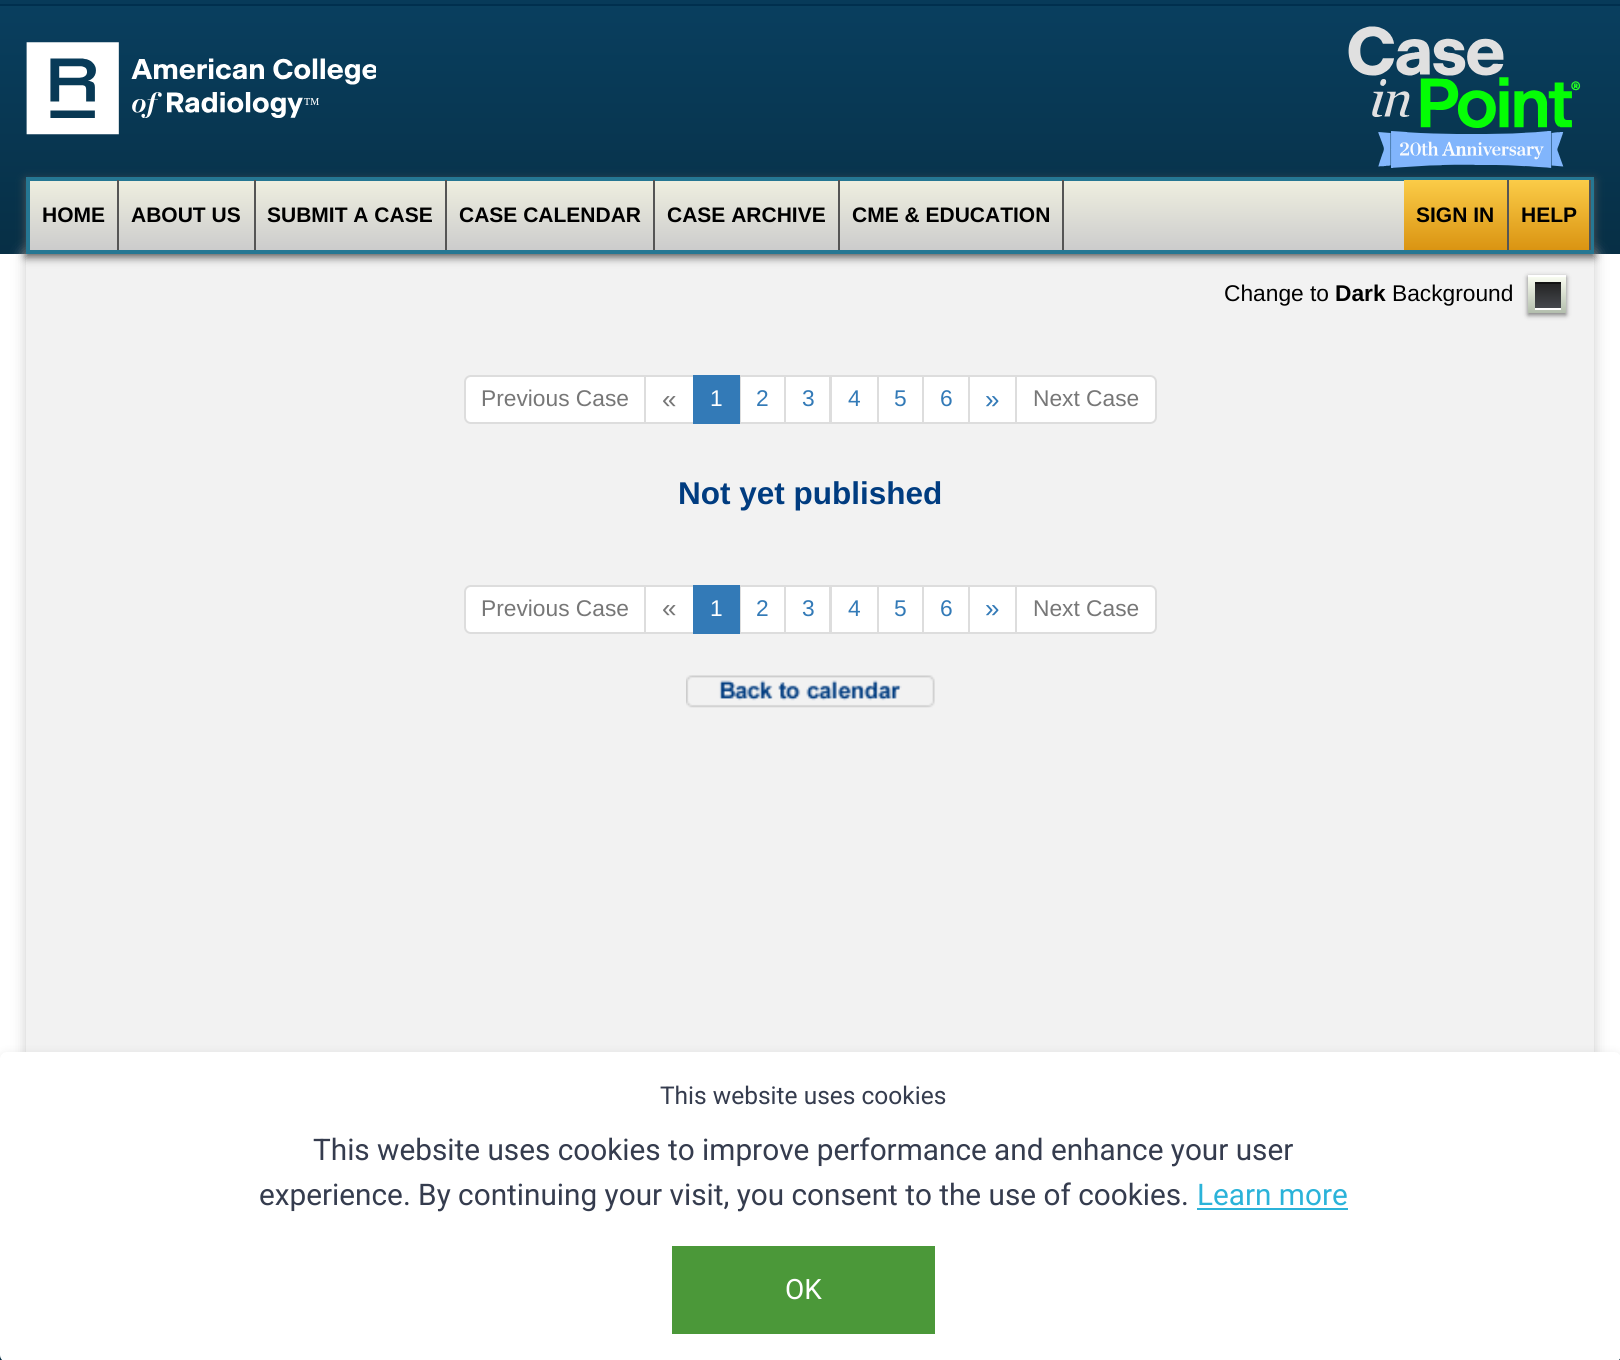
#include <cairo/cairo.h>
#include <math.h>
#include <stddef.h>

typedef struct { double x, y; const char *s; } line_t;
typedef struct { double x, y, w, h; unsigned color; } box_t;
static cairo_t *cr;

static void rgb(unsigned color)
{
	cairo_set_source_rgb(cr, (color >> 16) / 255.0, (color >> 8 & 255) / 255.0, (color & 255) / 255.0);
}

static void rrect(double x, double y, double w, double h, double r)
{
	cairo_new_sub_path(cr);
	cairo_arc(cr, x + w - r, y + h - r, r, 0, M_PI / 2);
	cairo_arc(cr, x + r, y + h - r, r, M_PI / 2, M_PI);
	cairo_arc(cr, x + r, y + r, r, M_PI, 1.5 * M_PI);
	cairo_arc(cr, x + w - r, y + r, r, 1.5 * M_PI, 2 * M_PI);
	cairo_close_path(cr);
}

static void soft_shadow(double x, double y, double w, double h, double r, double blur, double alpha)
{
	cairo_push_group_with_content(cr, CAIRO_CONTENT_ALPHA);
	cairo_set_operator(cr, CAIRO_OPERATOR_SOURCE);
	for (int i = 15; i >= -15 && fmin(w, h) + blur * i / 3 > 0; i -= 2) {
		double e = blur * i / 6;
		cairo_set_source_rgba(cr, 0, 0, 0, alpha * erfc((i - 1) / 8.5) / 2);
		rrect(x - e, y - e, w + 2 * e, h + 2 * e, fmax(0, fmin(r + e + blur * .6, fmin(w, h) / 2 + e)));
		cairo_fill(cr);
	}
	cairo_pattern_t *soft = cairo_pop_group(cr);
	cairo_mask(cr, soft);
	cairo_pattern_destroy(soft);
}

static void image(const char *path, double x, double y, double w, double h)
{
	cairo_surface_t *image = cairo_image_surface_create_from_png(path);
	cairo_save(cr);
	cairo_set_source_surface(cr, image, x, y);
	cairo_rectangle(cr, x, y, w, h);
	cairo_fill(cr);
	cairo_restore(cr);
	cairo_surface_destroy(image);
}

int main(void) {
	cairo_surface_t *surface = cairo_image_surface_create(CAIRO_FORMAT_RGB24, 1620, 1360);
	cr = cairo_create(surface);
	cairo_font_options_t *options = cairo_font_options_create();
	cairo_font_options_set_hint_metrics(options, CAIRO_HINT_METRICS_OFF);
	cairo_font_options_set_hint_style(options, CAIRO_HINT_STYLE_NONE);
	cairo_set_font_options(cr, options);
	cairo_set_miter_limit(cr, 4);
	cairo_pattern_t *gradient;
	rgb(0xffffff);
	cairo_paint(cr);
	gradient = cairo_pattern_create_linear(810, 0, 810, 254);
	cairo_pattern_add_color_stop_rgba(gradient, 0, 0.035, 0.247, 0.373, 1);
	cairo_pattern_add_color_stop_rgba(gradient, 1, 0.027, 0.184, 0.271, 1);
	cairo_set_source(cr, gradient);
	cairo_pattern_destroy(gradient);
	cairo_rectangle(cr, 0, 6, 1620, 248);
	cairo_fill(cr);
	rgb(0x073a59);
	cairo_rectangle(cr, 0, 0, 1620, 4);
	cairo_fill(cr);
	rgb(0x002f4e);
	cairo_rectangle(cr, 0, 4, 1620, 2);
	cairo_fill(cr);
	image("img/1.png", 26, 42, 350, 93);
	image("img/2.png", 1348, 26, 233, 142);
	rgb(0xcccccc);
	soft_shadow(26, 254, 1568, 968, 0, 7, 1);
	rgb(0xf2f2f2);
	cairo_rectangle(cr, 26, 254, 1568, 798);
	cairo_fill(cr);
	rgb(0x555555);
	soft_shadow(26, 180, 1568, 77, 0, 4.5, 1);
	gradient = cairo_pattern_create_linear(810, 180, 810, 250);
	cairo_pattern_add_color_stop_rgba(gradient, 0, 0.937, 0.937, 0.878, 1);
	cairo_pattern_add_color_stop_rgba(gradient, 1, 0.8, 0.8, 0.8, 1);
	cairo_set_source(cr, gradient);
	cairo_pattern_destroy(gradient);
	cairo_rectangle(cr, 30, 181, 1374, 69);
	cairo_fill(cr);
	cairo_rectangle(cr, 28, 179, 1564, 73);
	rgb(0x257793);
	cairo_set_line_width(cr, 4);
	cairo_stroke(cr);
	{
		static const box_t items[] = {
			{117, 180, 2, 70, 0x555555},
			{254, 180, 2, 70, 0x555555},
			{445, 180, 2, 70, 0x555555},
			{653, 180, 2, 70, 0x555555},
			{838, 180, 2, 70, 0x555555},
			{1062, 180, 2, 70, 0x555555},
		};
		for (size_t i = 0; i < sizeof items / sizeof *items; i++) {
			rgb(items[i].color);
			cairo_rectangle(cr, items[i].x, items[i].y, items[i].w, items[i].h);
			cairo_fill(cr);
		}
	}
	gradient = cairo_pattern_create_linear(1497, 180, 1497, 250);
	cairo_pattern_add_color_stop_rgba(gradient, 0, 0.984, 0.8, 0.282, 1);
	cairo_pattern_add_color_stop_rgba(gradient, 1, 0.855, 0.58, 0.071, 1);
	cairo_set_source(cr, gradient);
	cairo_pattern_destroy(gradient);
	cairo_rectangle(cr, 1404, 180, 185, 70);
	cairo_fill(cr);
	rgb(0x555555);
	cairo_rectangle(cr, 1507, 180, 2, 70);
	cairo_fill(cr);
	cairo_rectangle(cr, 1589, 180, 2, 70);
	cairo_fill(cr);
	rgb(0x000000);
	soft_shadow(1528, 277, 38, 38, 0, 2.5, 0.5);
	gradient = cairo_pattern_create_linear(1547, 275, 1547, 313);
	cairo_pattern_add_color_stop_rgba(gradient, 0, 0.988, 1, 0.957, 1);
	cairo_pattern_add_color_stop_rgba(gradient, 0.4, 0.875, 0.898, 0.843, 1);
	cairo_pattern_add_color_stop_rgba(gradient, 1, 0.702, 0.745, 0.678, 1);
	cairo_set_source(cr, gradient);
	cairo_pattern_destroy(gradient);
	cairo_rectangle(cr, 1528, 277, 38, 36);
	cairo_fill(cr);
	rgb(0xffffff);
	cairo_rectangle(cr, 1528, 275, 38, 2);
	cairo_fill(cr);
	cairo_rectangle(cr, 1535, 308, 26, 2);
	cairo_fill(cr);
	gradient = cairo_pattern_create_linear(1548, 282, 1548, 308);
	cairo_pattern_add_color_stop_rgba(gradient, 0, 0.133, 0.133, 0.133, 1);
	cairo_pattern_add_color_stop_rgba(gradient, 1, 0.271, 0.282, 0.302, 1);
	cairo_set_source(cr, gradient);
	cairo_pattern_destroy(gradient);
	cairo_rectangle(cr, 1535, 284, 26, 24);
	cairo_fill(cr);
	rgb(0x121212);
	cairo_rectangle(cr, 1535, 282, 26, 2);
	cairo_fill(cr);
	rgb(0xffffff);
	cairo_new_path(cr);
	cairo_move_to(cr, 471, 376);
	cairo_line_to(cr, 645, 376);
	cairo_line_to(cr, 645, 423);
	cairo_line_to(cr, 471, 423);
	cairo_curve_to(cr, 467.5, 423, 465, 420.5, 465, 417);
	cairo_line_to(cr, 465, 382);
	cairo_curve_to(cr, 465, 378.5, 467.5, 376, 471, 376);
	cairo_close_path(cr);
	cairo_fill_preserve(cr);
	rgb(0xdddddd);
	cairo_set_line_width(cr, 2);
	cairo_stroke(cr);
	rgb(0xffffff);
	cairo_rectangle(cr, 645, 376, 49, 47);
	cairo_fill_preserve(cr);
	rgb(0xdddddd);
	cairo_stroke(cr);
	rgb(0xffffff);
	cairo_rectangle(cr, 740, 376, 45, 47);
	cairo_fill_preserve(cr);
	rgb(0xdddddd);
	cairo_stroke(cr);
	rgb(0x337ab7);
	cairo_rectangle(cr, 693, 375, 47, 49);
	cairo_fill(cr);
	rgb(0xffffff);
	cairo_rectangle(cr, 785, 376, 45, 47);
	cairo_fill_preserve(cr);
	rgb(0xdddddd);
	cairo_stroke(cr);
	rgb(0xffffff);
	cairo_rectangle(cr, 831, 376, 47, 47);
	cairo_fill_preserve(cr);
	rgb(0xdddddd);
	cairo_stroke(cr);
	rgb(0xffffff);
	cairo_rectangle(cr, 878, 376, 45, 47);
	cairo_fill_preserve(cr);
	rgb(0xdddddd);
	cairo_stroke(cr);
	rgb(0xffffff);
	cairo_rectangle(cr, 923, 376, 46, 47);
	cairo_fill_preserve(cr);
	rgb(0xdddddd);
	cairo_stroke(cr);
	rgb(0xffffff);
	cairo_rectangle(cr, 969, 376, 47, 47);
	cairo_fill_preserve(cr);
	rgb(0xdddddd);
	cairo_stroke(cr);
	rgb(0xffffff);
	cairo_new_path(cr);
	cairo_move_to(cr, 1016, 376);
	cairo_line_to(cr, 1150, 376);
	cairo_curve_to(cr, 1153.5, 376, 1156, 378.5, 1156, 382);
	cairo_line_to(cr, 1156, 417);
	cairo_curve_to(cr, 1156, 420.5, 1153.5, 423, 1150, 423);
	cairo_line_to(cr, 1016, 423);
	cairo_close_path(cr);
	cairo_fill_preserve(cr);
	rgb(0xdddddd);
	cairo_stroke(cr);
	rgb(0xffffff);
	cairo_new_path(cr);
	cairo_move_to(cr, 471, 586);
	cairo_line_to(cr, 645, 586);
	cairo_line_to(cr, 645, 633);
	cairo_line_to(cr, 471, 633);
	cairo_curve_to(cr, 467.5, 633, 465, 630.5, 465, 627);
	cairo_line_to(cr, 465, 592);
	cairo_curve_to(cr, 465, 588.5, 467.5, 586, 471, 586);
	cairo_close_path(cr);
	cairo_fill_preserve(cr);
	rgb(0xdddddd);
	cairo_stroke(cr);
	rgb(0xffffff);
	cairo_rectangle(cr, 645, 586, 49, 47);
	cairo_fill_preserve(cr);
	rgb(0xdddddd);
	cairo_stroke(cr);
	rgb(0xffffff);
	cairo_rectangle(cr, 740, 586, 45, 47);
	cairo_fill_preserve(cr);
	rgb(0xdddddd);
	cairo_stroke(cr);
	rgb(0x337ab7);
	cairo_rectangle(cr, 693, 585, 47, 49);
	cairo_fill(cr);
	rgb(0xffffff);
	cairo_rectangle(cr, 785, 586, 45, 47);
	cairo_fill_preserve(cr);
	rgb(0xdddddd);
	cairo_stroke(cr);
	rgb(0xffffff);
	cairo_rectangle(cr, 831, 586, 47, 47);
	cairo_fill_preserve(cr);
	rgb(0xdddddd);
	cairo_stroke(cr);
	rgb(0xffffff);
	cairo_rectangle(cr, 878, 586, 45, 47);
	cairo_fill_preserve(cr);
	rgb(0xdddddd);
	cairo_stroke(cr);
	rgb(0xffffff);
	cairo_rectangle(cr, 923, 586, 46, 47);
	cairo_fill_preserve(cr);
	rgb(0xdddddd);
	cairo_stroke(cr);
	rgb(0xffffff);
	cairo_rectangle(cr, 969, 586, 47, 47);
	cairo_fill_preserve(cr);
	rgb(0xdddddd);
	cairo_stroke(cr);
	rgb(0xffffff);
	cairo_new_path(cr);
	cairo_move_to(cr, 1016, 586);
	cairo_line_to(cr, 1150, 586);
	cairo_curve_to(cr, 1153.5, 586, 1156, 588.5, 1156, 592);
	cairo_line_to(cr, 1156, 627);
	cairo_curve_to(cr, 1156, 630.5, 1153.5, 633, 1150, 633);
	cairo_line_to(cr, 1016, 633);
	cairo_close_path(cr);
	cairo_fill_preserve(cr);
	rgb(0xdddddd);
	cairo_stroke(cr);
	image("img/3.png", 686, 675, 249, 33);
	gradient = cairo_pattern_create_linear(810, 1222, 810, 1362);
	cairo_pattern_add_color_stop_rgba(gradient, 0, 0.035, 0.247, 0.373, 1);
	cairo_pattern_add_color_stop_rgba(gradient, 1, 0.027, 0.184, 0.271, 1);
	cairo_set_source(cr, gradient);
	cairo_pattern_destroy(gradient);
	cairo_rectangle(cr, 0, 1355, 1620, 5);
	cairo_fill(cr);
	rgb(0x000000);
	soft_shadow(0, 1054, 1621, 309, 7, 5, 0.1);
	rgb(0xffffff);
	rrect(0, 1052, 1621, 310, 7);
	cairo_fill(cr);
	rgb(0x2bb3d9);
	cairo_rectangle(cr, 1197, 1208, 151, 2);
	cairo_fill(cr);
	rgb(0x4b9839);
	cairo_rectangle(cr, 672, 1246, 263, 88);
	cairo_fill(cr);
	cairo_select_font_face(cr, "Liberation Sans", CAIRO_FONT_SLANT_NORMAL, CAIRO_FONT_WEIGHT_BOLD);
	cairo_set_font_size(cr, 21);
	rgb(0x000000);
	{
		static const line_t items[] = {
			{42, 222, "HOME"},
			{131, 222, "ABOUT US"},
			{267, 222, "SUBMIT A CASE"},
			{459, 222, "CASE CALENDAR"},
			{667, 222, "CASE ARCHIVE"},
			{852, 222, "CME & EDUCATION"},
			{1416, 222, "SIGN IN"},
			{1521, 222, "HELP"},
		};
		for (size_t i = 0; i < sizeof items / sizeof *items; i++) {
			cairo_move_to(cr, items[i].x, items[i].y);
			cairo_show_text(cr, items[i].s);
		}
	}
	cairo_select_font_face(cr, "Liberation Sans", CAIRO_FONT_SLANT_NORMAL, CAIRO_FONT_WEIGHT_NORMAL);
	cairo_set_font_size(cr, 22.75);
	cairo_move_to(cr, 1224, 301);
	cairo_show_text(cr, "Change to");
	cairo_select_font_face(cr, "Liberation Sans", CAIRO_FONT_SLANT_NORMAL, CAIRO_FONT_WEIGHT_BOLD);
	cairo_move_to(cr, 1335, 301);
	cairo_show_text(cr, "Dark");
	cairo_select_font_face(cr, "Liberation Sans", CAIRO_FONT_SLANT_NORMAL, CAIRO_FONT_WEIGHT_NORMAL);
	cairo_move_to(cr, 1392, 301);
	cairo_show_text(cr, "Background");
	rgb(0x777777);
	cairo_move_to(cr, 481, 406);
	cairo_show_text(cr, "Previous Case");
	cairo_set_font_size(cr, 26);
	cairo_move_to(cr, 662, 408);
	cairo_show_text(cr, "«");
	cairo_set_font_size(cr, 22.75);
	rgb(0xffffff);
	cairo_move_to(cr, 710, 406);
	cairo_show_text(cr, "1");
	rgb(0x337ab7);
	{
		static const line_t items[] = {
			{756, 406, "2"},
			{802, 406, "3"},
			{848, 406, "4"},
			{894, 406, "5"},
			{940, 406, "6"},
		};
		for (size_t i = 0; i < sizeof items / sizeof *items; i++) {
			cairo_move_to(cr, items[i].x, items[i].y);
			cairo_show_text(cr, items[i].s);
		}
	}
	cairo_set_font_size(cr, 26);
	cairo_move_to(cr, 985, 408);
	cairo_show_text(cr, "»");
	cairo_set_font_size(cr, 22.75);
	rgb(0x777777);
	cairo_move_to(cr, 1033, 406);
	cairo_show_text(cr, "Next Case");
	cairo_select_font_face(cr, "Liberation Sans", CAIRO_FONT_SLANT_NORMAL, CAIRO_FONT_WEIGHT_BOLD);
	cairo_set_font_size(cr, 31.5);
	rgb(0x003c80);
	cairo_move_to(cr, 678, 504);
	cairo_show_text(cr, "Not yet published");
	cairo_select_font_face(cr, "Liberation Sans", CAIRO_FONT_SLANT_NORMAL, CAIRO_FONT_WEIGHT_NORMAL);
	cairo_set_font_size(cr, 22.75);
	rgb(0x777777);
	cairo_move_to(cr, 481, 616);
	cairo_show_text(cr, "Previous Case");
	cairo_set_font_size(cr, 26);
	cairo_move_to(cr, 662, 617);
	cairo_show_text(cr, "«");
	cairo_set_font_size(cr, 22.75);
	rgb(0xffffff);
	cairo_move_to(cr, 710, 616);
	cairo_show_text(cr, "1");
	rgb(0x337ab7);
	{
		static const line_t items[] = {
			{756, 616, "2"},
			{802, 616, "3"},
			{848, 616, "4"},
			{894, 616, "5"},
			{940, 616, "6"},
		};
		for (size_t i = 0; i < sizeof items / sizeof *items; i++) {
			cairo_move_to(cr, items[i].x, items[i].y);
			cairo_show_text(cr, items[i].s);
		}
	}
	cairo_set_font_size(cr, 26);
	cairo_move_to(cr, 985, 617);
	cairo_show_text(cr, "»");
	cairo_set_font_size(cr, 22.75);
	rgb(0x777777);
	cairo_move_to(cr, 1033, 616);
	cairo_show_text(cr, "Next Case");
	cairo_select_font_face(cr, "Roboto", CAIRO_FONT_SLANT_NORMAL, CAIRO_FONT_WEIGHT_NORMAL);
	cairo_set_font_size(cr, 24.5);
	rgb(0x353c4e);
	cairo_move_to(cr, 660, 1104);
	cairo_show_text(cr, "This website uses cookies");
	cairo_set_font_size(cr, 29.75);
	cairo_move_to(cr, 313, 1160);
	cairo_show_text(cr, "This website uses cookies to improve performance and enhance your user");
	cairo_move_to(cr, 259, 1205);
	cairo_show_text(cr, "experience. By continuing your visit, you consent to the use of cookies.");
	rgb(0x2bb3d9);
	cairo_move_to(cr, 1197, 1205);
	cairo_show_text(cr, "Learn more");
	cairo_set_font_size(cr, 28);
	rgb(0xffffff);
	cairo_move_to(cr, 785, 1299);
	cairo_show_text(cr, "OK");
	cairo_surface_write_to_png(surface, "page.png");
	cairo_font_options_destroy(options);
	cairo_destroy(cr);
	cairo_surface_destroy(surface);
	return 0;
}
